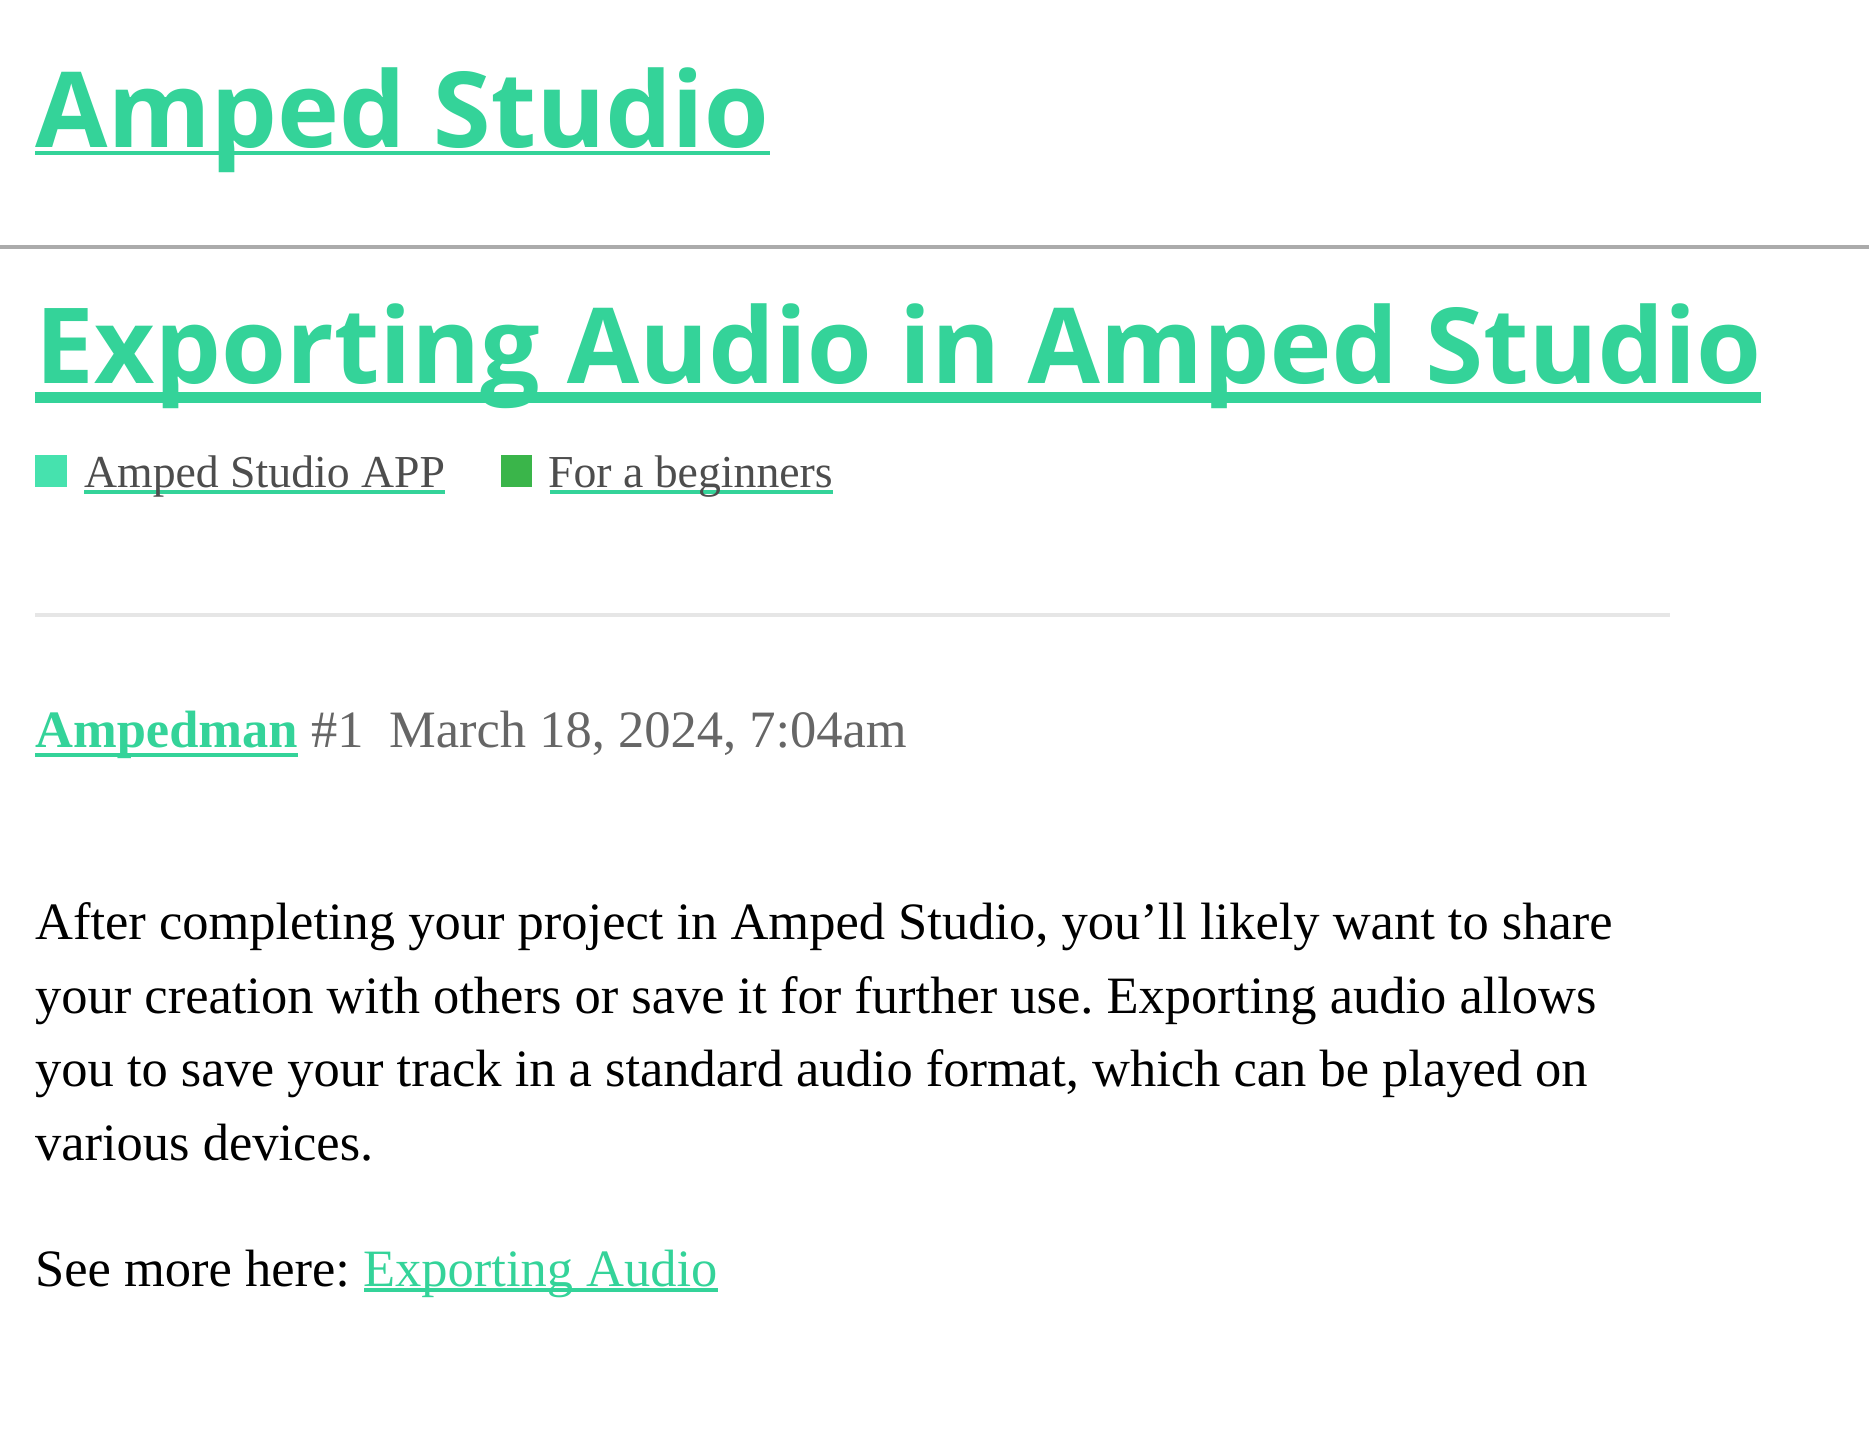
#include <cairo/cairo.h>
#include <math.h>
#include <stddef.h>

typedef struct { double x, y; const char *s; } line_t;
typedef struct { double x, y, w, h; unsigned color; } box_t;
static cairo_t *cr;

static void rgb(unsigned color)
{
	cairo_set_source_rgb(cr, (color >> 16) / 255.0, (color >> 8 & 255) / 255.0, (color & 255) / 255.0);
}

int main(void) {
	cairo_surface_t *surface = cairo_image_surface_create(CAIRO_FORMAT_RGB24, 1869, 1437);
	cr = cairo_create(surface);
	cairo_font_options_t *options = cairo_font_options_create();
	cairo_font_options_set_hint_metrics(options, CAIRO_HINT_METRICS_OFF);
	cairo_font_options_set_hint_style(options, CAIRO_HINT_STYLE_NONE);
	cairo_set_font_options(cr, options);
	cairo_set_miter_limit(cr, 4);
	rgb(0xffffff);
	cairo_paint(cr);
	{
		static const box_t items[] = {
			{0, 245, 1869, 4, 0xababab},
			{35, 151, 735, 4, 0x34d399},
			{35, 392, 1726, 11, 0x34d399},
			{35, 455, 32, 32, 0x46e2ae},
			{84, 490, 361, 4, 0x34d399},
			{501, 455, 31, 32, 0x3ab54a},
			{550, 490, 283, 4, 0x34d399},
			{35, 613, 1635, 4, 0xe6e6e6},
			{35, 753, 263, 4, 0x34d399},
			{364, 1288, 354, 4, 0x34d399},
		};
		for (size_t i = 0; i < sizeof items / sizeof *items; i++) {
			rgb(items[i].color);
			cairo_rectangle(cr, items[i].x, items[i].y, items[i].w, items[i].h);
			cairo_fill(cr);
		}
	}
	cairo_select_font_face(cr, "Open Sans", CAIRO_FONT_SLANT_NORMAL, CAIRO_FONT_WEIGHT_BOLD);
	cairo_set_font_size(cr, 105);
	cairo_move_to(cr, 35, 147);
	cairo_show_text(cr, "Amped Studio");
	cairo_move_to(cr, 35, 383);
	cairo_show_text(cr, "Exporting Audio in Amped Studio");
	cairo_select_font_face(cr, "Liberation Serif", CAIRO_FONT_SLANT_NORMAL, CAIRO_FONT_WEIGHT_NORMAL);
	cairo_set_font_size(cr, 45.75);
	rgb(0x4d4d4d);
	cairo_move_to(cr, 84, 487);
	cairo_show_text(cr, "Amped Studio APP");
	cairo_move_to(cr, 548, 487);
	cairo_show_text(cr, "For a beginners");
	cairo_select_font_face(cr, "Liberation Serif", CAIRO_FONT_SLANT_NORMAL, CAIRO_FONT_WEIGHT_BOLD);
	cairo_set_font_size(cr, 52.5);
	rgb(0x34d399);
	cairo_move_to(cr, 35, 747);
	cairo_show_text(cr, "Ampedman");
	cairo_select_font_face(cr, "Liberation Serif", CAIRO_FONT_SLANT_NORMAL, CAIRO_FONT_WEIGHT_NORMAL);
	rgb(0x666666);
	cairo_move_to(cr, 311, 747);
	cairo_show_text(cr, "#1");
	cairo_move_to(cr, 389, 747);
	cairo_show_text(cr, "March 18, 2024, 7:04am");
	rgb(0x000000);
	{
		static const line_t items[] = {
			{35, 939, "After completing your project in Amped Studio, you’ll likely want to share"},
			{35, 1013, "your creation with others or save it for further use. Exporting audio allows"},
			{35, 1086, "you to save your track in a standard audio format, which can be played on"},
			{35, 1160, "various devices."},
			{35, 1286, "See more here:"},
		};
		for (size_t i = 0; i < sizeof items / sizeof *items; i++) {
			cairo_move_to(cr, items[i].x, items[i].y);
			cairo_show_text(cr, items[i].s);
		}
	}
	rgb(0x34d399);
	cairo_move_to(cr, 363, 1286);
	cairo_show_text(cr, "Exporting Audio");
	cairo_surface_write_to_png(surface, "page.png");
	cairo_font_options_destroy(options);
	cairo_destroy(cr);
	cairo_surface_destroy(surface);
	return 0;
}
